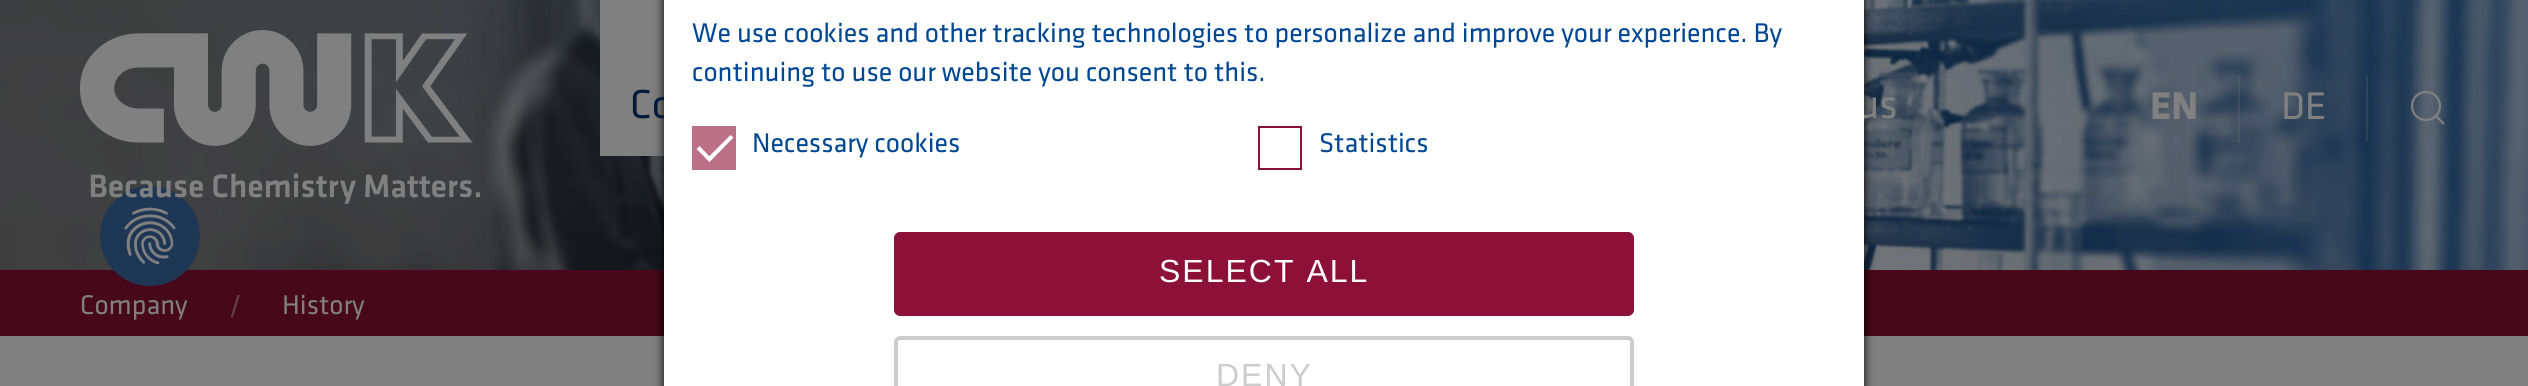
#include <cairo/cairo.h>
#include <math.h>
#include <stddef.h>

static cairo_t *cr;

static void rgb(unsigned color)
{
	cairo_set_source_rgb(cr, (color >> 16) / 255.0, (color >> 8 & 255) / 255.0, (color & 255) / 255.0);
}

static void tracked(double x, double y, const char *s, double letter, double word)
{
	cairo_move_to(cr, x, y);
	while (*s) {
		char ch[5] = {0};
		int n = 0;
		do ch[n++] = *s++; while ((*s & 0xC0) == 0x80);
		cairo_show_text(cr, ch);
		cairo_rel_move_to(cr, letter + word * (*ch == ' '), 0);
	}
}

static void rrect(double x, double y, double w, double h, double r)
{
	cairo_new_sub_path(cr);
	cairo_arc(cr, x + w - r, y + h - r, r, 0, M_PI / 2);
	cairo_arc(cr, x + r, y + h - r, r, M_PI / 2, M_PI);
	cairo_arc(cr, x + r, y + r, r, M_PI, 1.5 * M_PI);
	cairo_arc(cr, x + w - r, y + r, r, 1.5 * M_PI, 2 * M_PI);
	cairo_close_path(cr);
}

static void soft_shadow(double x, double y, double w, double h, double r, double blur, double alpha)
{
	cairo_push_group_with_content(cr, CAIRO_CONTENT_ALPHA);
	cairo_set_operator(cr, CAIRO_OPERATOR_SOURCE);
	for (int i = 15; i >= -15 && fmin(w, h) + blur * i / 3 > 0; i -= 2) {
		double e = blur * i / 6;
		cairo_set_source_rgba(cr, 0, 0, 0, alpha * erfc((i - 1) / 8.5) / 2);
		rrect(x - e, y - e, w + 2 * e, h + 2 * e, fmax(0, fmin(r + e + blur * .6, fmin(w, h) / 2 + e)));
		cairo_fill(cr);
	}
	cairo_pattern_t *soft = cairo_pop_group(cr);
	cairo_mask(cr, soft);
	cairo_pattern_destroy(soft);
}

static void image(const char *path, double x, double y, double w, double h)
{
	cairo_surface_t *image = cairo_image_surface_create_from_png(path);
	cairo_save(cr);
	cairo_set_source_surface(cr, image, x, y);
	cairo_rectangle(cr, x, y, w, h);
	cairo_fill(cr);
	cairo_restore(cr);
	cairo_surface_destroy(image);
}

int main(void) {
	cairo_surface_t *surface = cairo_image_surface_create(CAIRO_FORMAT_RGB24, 2528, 386);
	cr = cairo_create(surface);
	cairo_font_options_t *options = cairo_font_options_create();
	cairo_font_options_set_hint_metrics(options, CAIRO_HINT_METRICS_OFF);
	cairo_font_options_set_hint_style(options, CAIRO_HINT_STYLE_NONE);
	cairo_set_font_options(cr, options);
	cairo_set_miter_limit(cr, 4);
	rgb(0x808080);
	cairo_paint(cr);
	image("img/1.png", 0, 0, 2528, 270);
	rgb(0x808080);
	cairo_rectangle(cr, 600, 0, 64, 156);
	cairo_fill(cr);
	rgb(0x47081c);
	cairo_rectangle(cr, 0, 270, 2528, 66);
	cairo_fill(cr);
	rgb(0x000000);
	soft_shadow(664, -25, 1200, 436, 10, 5, 1);
	rgb(0x1e3755);
	cairo_arc(cr, 150, 236, 50, 0, 2 * M_PI);
	cairo_fill(cr);
	image("img/2.png", 80, 30, 400, 174);
	cairo_set_source_rgba(cr, 0.502, 0.502, 0.502, 0.2);
	cairo_rectangle(cr, 2238, 76, 2, 66);
	cairo_fill(cr);
	cairo_rectangle(cr, 2366, 76, 2, 66);
	cairo_fill(cr);
	cairo_arc(cr, 2426, 106, 14, 0, 2 * M_PI);
	rgb(0x808080);
	cairo_set_line_width(cr, 2.2);
	cairo_stroke(cr);
	cairo_new_path(cr);
	cairo_move_to(cr, 2436, 116);
	cairo_line_to(cr, 2444, 124);
	cairo_close_path(cr);
	cairo_stroke(cr);
	image("img/3.png", 124, 207, 52, 58);
	cairo_select_font_face(cr, "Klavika", CAIRO_FONT_SLANT_NORMAL, CAIRO_FONT_WEIGHT_NORMAL);
	cairo_set_font_size(cr, 42);
	rgb(0x001a39);
	cairo_move_to(cr, 630, 118);
	cairo_show_text(cr, "Co");
	rgb(0x808080);
	cairo_move_to(cr, 1857, 118);
	cairo_show_text(cr, "us");
	rgb(0xffffff);
	cairo_rectangle(cr, 664, 0, 1200, 386);
	cairo_fill(cr);
	rrect(896, 338, 736, 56, 4);
	rgb(0xcccccc);
	cairo_set_line_width(cr, 4);
	cairo_stroke(cr);
	cairo_select_font_face(cr, "Liberation Sans", CAIRO_FONT_SLANT_NORMAL, CAIRO_FONT_WEIGHT_NORMAL);
	cairo_set_font_size(cr, 32);
	tracked(1216, 386, "DENY", 2, 0);
	cairo_rectangle(cr, 1259, 127, 42, 42);
	rgb(0x8d1038);
	cairo_set_line_width(cr, 2);
	cairo_stroke(cr);
	cairo_select_font_face(cr, "Klavika", CAIRO_FONT_SLANT_NORMAL, CAIRO_FONT_WEIGHT_NORMAL);
	cairo_set_font_size(cr, 28);
	rgb(0x004793);
	cairo_move_to(cr, 1319, 152);
	cairo_show_text(cr, "Statistics");
	rgb(0xbb7088);
	cairo_rectangle(cr, 692, 126, 44, 44);
	cairo_fill(cr);
	rgb(0xffffff);
	cairo_new_path(cr);
	cairo_move_to(cr, 730.5, 135);
	cairo_line_to(cr, 733.5, 137.5);
	cairo_line_to(cr, 709.5, 162);
	cairo_line_to(cr, 706.5, 159);
	cairo_close_path(cr);
	cairo_fill(cr);
	cairo_new_path(cr);
	cairo_move_to(cr, 699.5, 146);
	cairo_line_to(cr, 712, 159);
	cairo_line_to(cr, 709.5, 162);
	cairo_line_to(cr, 696.5, 149);
	cairo_close_path(cr);
	cairo_fill(cr);
	rgb(0x004793);
	cairo_move_to(cr, 752, 152);
	cairo_show_text(cr, "Necessary cookies");
	rgb(0x8d1038);
	rrect(896, 234, 736, 80, 4);
	cairo_fill_preserve(cr);
	cairo_set_line_width(cr, 4);
	cairo_stroke(cr);
	cairo_select_font_face(cr, "Liberation Sans", CAIRO_FONT_SLANT_NORMAL, CAIRO_FONT_WEIGHT_NORMAL);
	cairo_set_font_size(cr, 32);
	rgb(0xffffff);
	tracked(1159, 282, "SELECT ALL", 2, 0);
	cairo_select_font_face(cr, "Klavika", CAIRO_FONT_SLANT_NORMAL, CAIRO_FONT_WEIGHT_NORMAL);
	cairo_set_font_size(cr, 28);
	rgb(0x004793);
	cairo_move_to(cr, 692, 81);
	cairo_show_text(cr, "continuing to use our website you consent to this.");
	cairo_move_to(cr, 692, 42);
	cairo_show_text(cr, "We use cookies and other tracking technologies to personalize and improve your experience. By");
	cairo_select_font_face(cr, "Klavika", CAIRO_FONT_SLANT_NORMAL, CAIRO_FONT_WEIGHT_BOLD);
	cairo_set_font_size(cr, 40);
	rgb(0x808080);
	cairo_move_to(cr, 2150, 119);
	cairo_show_text(cr, "EN");
	cairo_select_font_face(cr, "Klavika", CAIRO_FONT_SLANT_NORMAL, CAIRO_FONT_WEIGHT_NORMAL);
	cairo_move_to(cr, 2281, 119);
	cairo_show_text(cr, "DE");
	cairo_set_font_size(cr, 28);
	cairo_move_to(cr, 80, 314);
	cairo_show_text(cr, "Company");
	rgb(0x63444e);
	cairo_move_to(cr, 229, 314);
	cairo_show_text(cr, "/");
	rgb(0x808080);
	cairo_move_to(cr, 282, 314);
	cairo_show_text(cr, "History");
	cairo_surface_write_to_png(surface, "page.png");
	cairo_font_options_destroy(options);
	cairo_destroy(cr);
	cairo_surface_destroy(surface);
	return 0;
}
